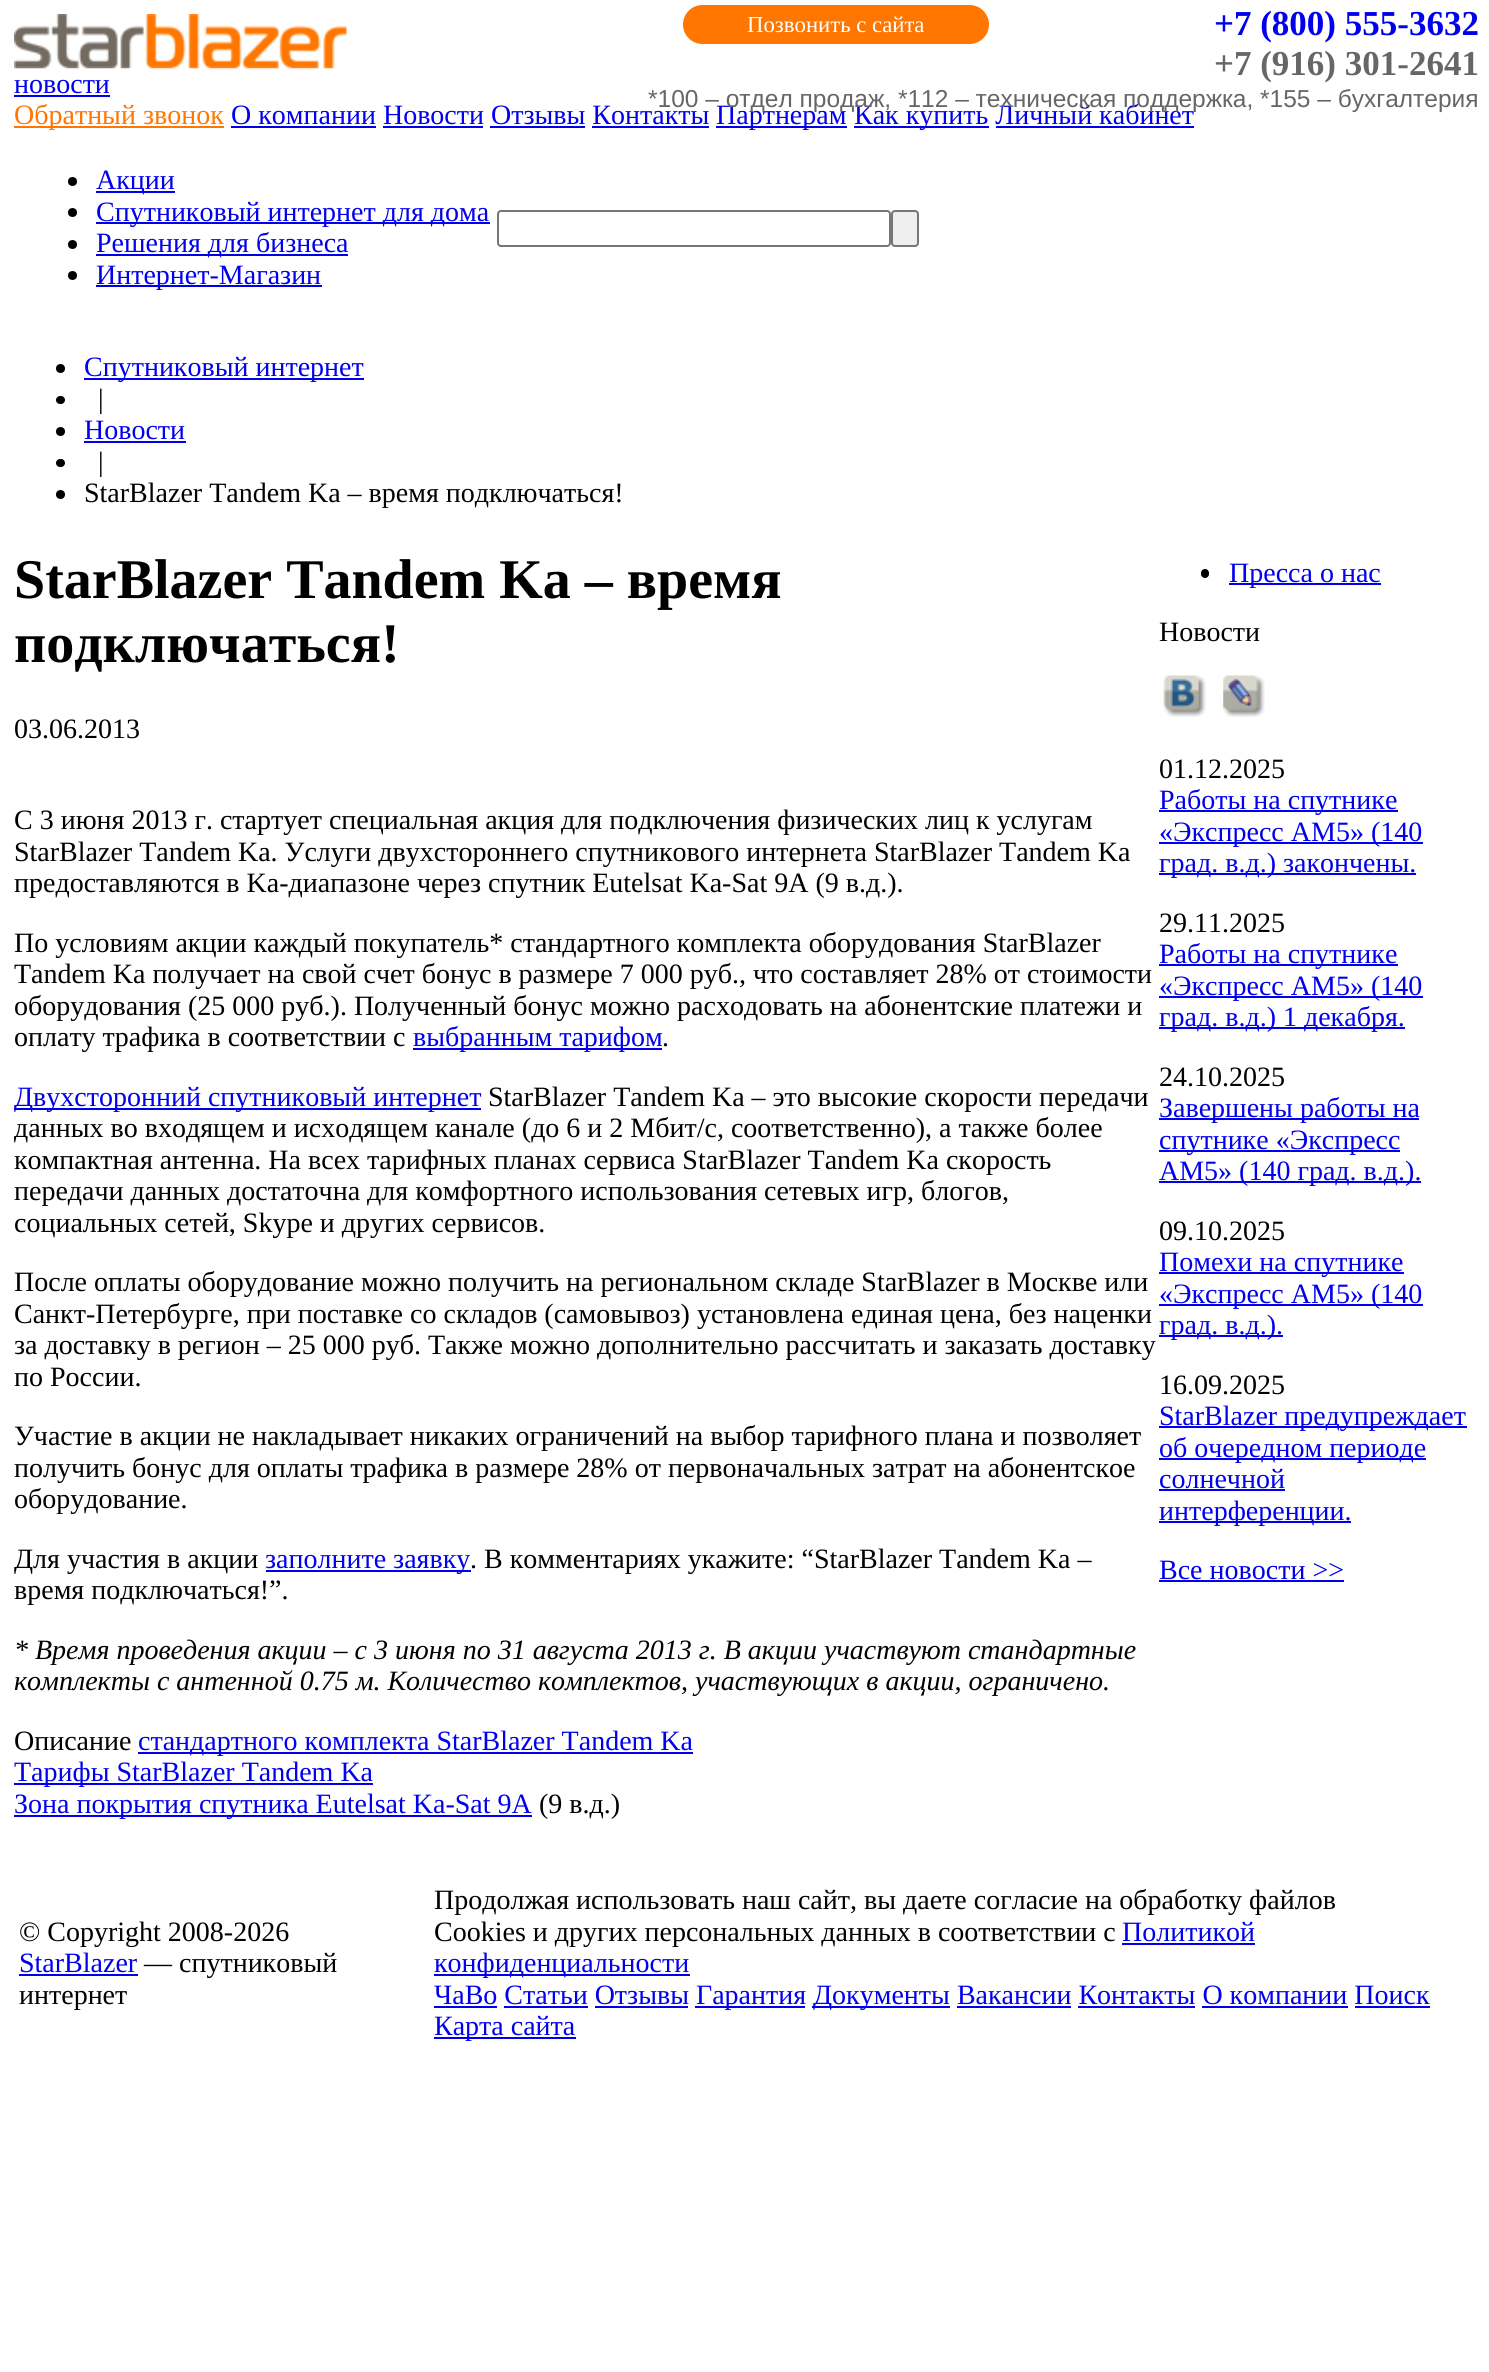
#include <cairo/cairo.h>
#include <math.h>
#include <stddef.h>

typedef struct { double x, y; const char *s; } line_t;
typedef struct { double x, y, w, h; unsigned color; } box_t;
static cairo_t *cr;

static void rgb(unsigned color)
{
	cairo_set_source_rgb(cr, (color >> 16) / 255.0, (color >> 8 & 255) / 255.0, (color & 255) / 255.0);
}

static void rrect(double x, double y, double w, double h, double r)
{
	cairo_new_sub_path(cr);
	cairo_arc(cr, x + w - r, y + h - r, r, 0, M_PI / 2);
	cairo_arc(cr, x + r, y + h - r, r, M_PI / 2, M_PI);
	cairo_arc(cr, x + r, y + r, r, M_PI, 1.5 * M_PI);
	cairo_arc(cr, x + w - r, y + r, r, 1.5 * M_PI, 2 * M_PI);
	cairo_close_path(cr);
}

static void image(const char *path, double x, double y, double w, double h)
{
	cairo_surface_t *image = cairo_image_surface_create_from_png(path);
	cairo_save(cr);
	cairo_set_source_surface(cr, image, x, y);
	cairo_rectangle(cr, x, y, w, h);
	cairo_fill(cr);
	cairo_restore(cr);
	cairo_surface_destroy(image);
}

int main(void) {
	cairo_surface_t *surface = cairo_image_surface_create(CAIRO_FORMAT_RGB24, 1489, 2372);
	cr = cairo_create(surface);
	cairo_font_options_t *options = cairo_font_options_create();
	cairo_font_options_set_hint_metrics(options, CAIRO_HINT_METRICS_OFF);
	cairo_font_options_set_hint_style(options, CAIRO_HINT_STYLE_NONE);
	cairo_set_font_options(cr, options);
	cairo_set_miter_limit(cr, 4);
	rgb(0xffffff);
	cairo_paint(cr);
	image("img/1.png", 14, 14, 333, 55);
	rgb(0xff7600);
	rrect(683, 5, 306, 39, 19.5);
	cairo_fill(cr);
	{
		static const box_t items[] = {
			{14, 95, 96, 2, 0x0000ee},
			{14, 126, 210, 2, 0xff7600},
			{231, 126, 145, 2, 0x0000ee},
			{716, 126, 131, 2, 0x0000ee},
			{854, 126, 135, 2, 0x0000ee},
			{996, 126, 198, 2, 0x0000ee},
			{383, 126, 100, 2, 0x0000ee},
			{490, 126, 95, 2, 0x0000ee},
			{592, 126, 117, 2, 0x0000ee},
		};
		for (size_t i = 0; i < sizeof items / sizeof *items; i++) {
			rgb(items[i].color);
			cairo_rectangle(cr, items[i].x, items[i].y, items[i].w, items[i].h);
			cairo_fill(cr);
		}
	}
	rgb(0x000000);
	cairo_arc(cr, 72.5, 181.5, 4.5, 0, 2 * M_PI);
	cairo_fill(cr);
	rgb(0x0000ee);
	cairo_rectangle(cr, 96, 191, 79, 2);
	cairo_fill(cr);
	rgb(0x000000);
	cairo_arc(cr, 72.5, 212.5, 4.5, 0, 2 * M_PI);
	cairo_fill(cr);
	rgb(0x0000ee);
	cairo_rectangle(cr, 96, 222, 394, 2);
	cairo_fill(cr);
	rgb(0x000000);
	cairo_arc(cr, 72.5, 244.5, 4.5, 0, 2 * M_PI);
	cairo_fill(cr);
	rgb(0x0000ee);
	cairo_rectangle(cr, 96, 254, 252, 2);
	cairo_fill(cr);
	rgb(0x000000);
	cairo_arc(cr, 72.5, 275.5, 4.5, 0, 2 * M_PI);
	cairo_fill(cr);
	rgb(0x0000ee);
	cairo_rectangle(cr, 96, 285, 226, 2);
	cairo_fill(cr);
	rrect(498, 211, 392, 35, 3);
	rgb(0x767676);
	cairo_stroke(cr);
	rgb(0xefefef);
	rrect(892, 211, 26, 35, 3);
	cairo_fill_preserve(cr);
	rgb(0x767676);
	cairo_stroke(cr);
	rgb(0x000000);
	cairo_arc(cr, 60.5, 368.5, 4.5, 0, 2 * M_PI);
	cairo_fill(cr);
	rgb(0x0000ee);
	cairo_rectangle(cr, 84, 378, 280, 2);
	cairo_fill(cr);
	rgb(0x000000);
	rrect(56, 396, 9, 8, 4);
	cairo_fill(cr);
	cairo_arc(cr, 60.5, 431.5, 4.5, 0, 2 * M_PI);
	cairo_fill(cr);
	rgb(0x0000ee);
	cairo_rectangle(cr, 84, 441, 102, 2);
	cairo_fill(cr);
	rgb(0x000000);
	rrect(56, 459, 9, 8, 4);
	cairo_fill(cr);
	cairo_arc(cr, 60.5, 494.5, 4.5, 0, 2 * M_PI);
	cairo_fill(cr);
	{
		static const box_t items[] = {
			{413, 1048, 249, 2, 0x0000ee},
			{14, 1108, 467, 2, 0x0000ee},
			{266, 1570, 205, 2, 0x0000ee},
			{138, 1752, 555, 2, 0x0000ee},
			{14, 1783, 359, 2, 0x0000ee},
			{14, 1815, 518, 2, 0x0000ee},
		};
		for (size_t i = 0; i < sizeof items / sizeof *items; i++) {
			rgb(items[i].color);
			cairo_rectangle(cr, items[i].x, items[i].y, items[i].w, items[i].h);
			cairo_fill(cr);
		}
	}
	rgb(0x000000);
	rrect(1201, 569, 8, 9, 4);
	cairo_fill(cr);
	rgb(0x0000ee);
	cairo_rectangle(cr, 1229, 583, 152, 2);
	cairo_fill(cr);
	image("img/2.png", 1163, 675, 43, 42);
	image("img/3.png", 1223, 675, 42, 42);
	{
		static const box_t items[] = {
			{1159, 810, 239, 2, 0x0000ee},
			{1159, 842, 264, 2, 0x0000ee},
			{1159, 873, 257, 2, 0x0000ee},
			{1159, 964, 239, 2, 0x0000ee},
			{1159, 996, 264, 2, 0x0000ee},
			{1159, 1027, 246, 2, 0x0000ee},
			{1159, 1118, 260, 2, 0x0000ee},
			{1159, 1150, 241, 2, 0x0000ee},
			{1159, 1181, 262, 2, 0x0000ee},
			{1159, 1272, 245, 2, 0x0000ee},
			{1159, 1304, 264, 2, 0x0000ee},
			{1159, 1335, 124, 2, 0x0000ee},
			{1159, 1426, 308, 2, 0x0000ee},
			{1159, 1458, 267, 2, 0x0000ee},
			{1159, 1489, 126, 2, 0x0000ee},
			{1159, 1521, 192, 2, 0x0000ee},
			{1159, 1580, 185, 2, 0x0000ee},
			{19, 1974, 119, 2, 0x0000ee},
			{1122, 1943, 133, 2, 0x0000ee},
			{434, 1974, 256, 2, 0x0000ee},
			{434, 2006, 63, 2, 0x0000ee},
			{695, 2006, 110, 2, 0x0000ee},
			{812, 2006, 138, 2, 0x0000ee},
			{504, 2006, 84, 2, 0x0000ee},
			{595, 2006, 93, 2, 0x0000ee},
			{957, 2006, 114, 2, 0x0000ee},
			{1078, 2006, 117, 2, 0x0000ee},
			{1202, 2006, 146, 2, 0x0000ee},
			{1355, 2006, 75, 2, 0x0000ee},
			{434, 2037, 142, 2, 0x0000ee},
		};
		for (size_t i = 0; i < sizeof items / sizeof *items; i++) {
			rgb(items[i].color);
			cairo_rectangle(cr, items[i].x, items[i].y, items[i].w, items[i].h);
			cairo_fill(cr);
		}
	}
	cairo_select_font_face(cr, "Liberation Serif", CAIRO_FONT_SLANT_NORMAL, CAIRO_FONT_WEIGHT_NORMAL);
	cairo_set_font_size(cr, 22.75);
	rgb(0xffffff);
	cairo_move_to(cr, 747, 32);
	cairo_show_text(cr, "Позвонить с сайта");
	cairo_select_font_face(cr, "Liberation Serif", CAIRO_FONT_SLANT_NORMAL, CAIRO_FONT_WEIGHT_BOLD);
	cairo_set_font_size(cr, 35);
	rgb(0x0000ee);
	cairo_move_to(cr, 1214, 35);
	cairo_show_text(cr, "+7 (800) 555-3632");
	rgb(0x666666);
	cairo_move_to(cr, 1214, 75);
	cairo_show_text(cr, "+7 (916) 301-2641");
	cairo_select_font_face(cr, "Liberation Serif", CAIRO_FONT_SLANT_NORMAL, CAIRO_FONT_WEIGHT_NORMAL);
	cairo_set_font_size(cr, 28);
	rgb(0x0000ee);
	cairo_move_to(cr, 14, 93);
	cairo_show_text(cr, "новости");
	rgb(0xff7600);
	cairo_move_to(cr, 14, 124);
	cairo_show_text(cr, "Обратный звонок");
	rgb(0x0000ee);
	{
		static const line_t items[] = {
			{231, 124, "О компании Новости Отзывы Контакты"},
			{716, 124, "Партнерам"},
			{854, 124, "Как купить Личный кабинет"},
		};
		for (size_t i = 0; i < sizeof items / sizeof *items; i++) {
			cairo_move_to(cr, items[i].x, items[i].y);
			cairo_show_text(cr, items[i].s);
		}
	}
	cairo_select_font_face(cr, "Liberation Sans", CAIRO_FONT_SLANT_NORMAL, CAIRO_FONT_WEIGHT_NORMAL);
	cairo_set_font_size(cr, 24.5);
	rgb(0x666666);
	cairo_move_to(cr, 648, 107);
	cairo_show_text(cr, "*100 – отдел продаж, *112 – техническая поддержка, *155 – бухгалтерия");
	cairo_select_font_face(cr, "Liberation Serif", CAIRO_FONT_SLANT_NORMAL, CAIRO_FONT_WEIGHT_NORMAL);
	cairo_set_font_size(cr, 28);
	rgb(0x0000ee);
	{
		static const line_t items[] = {
			{96, 189, "Акции"},
			{96, 221, "Cпутниковый интернет для дома"},
			{96, 252, "Решения для бизнеса"},
			{96, 284, "Интернет-Магазин"},
			{84, 376, "Спутниковый интернет"},
		};
		for (size_t i = 0; i < sizeof items / sizeof *items; i++) {
			cairo_move_to(cr, items[i].x, items[i].y);
			cairo_show_text(cr, items[i].s);
		}
	}
	rgb(0x000000);
	cairo_move_to(cr, 98, 408);
	cairo_show_text(cr, "|");
	rgb(0x0000ee);
	cairo_move_to(cr, 84, 439);
	cairo_show_text(cr, "Новости");
	rgb(0x000000);
	cairo_move_to(cr, 98, 471);
	cairo_show_text(cr, "|");
	cairo_move_to(cr, 84, 502);
	cairo_show_text(cr, "StarBlazer Tandem Ka – время подключаться!");
	cairo_select_font_face(cr, "Liberation Serif", CAIRO_FONT_SLANT_NORMAL, CAIRO_FONT_WEIGHT_BOLD);
	cairo_set_font_size(cr, 56);
	cairo_move_to(cr, 14, 598);
	cairo_show_text(cr, "StarBlazer Tandem Ka – время");
	cairo_move_to(cr, 14, 662);
	cairo_show_text(cr, "подключаться!");
	cairo_select_font_face(cr, "Liberation Serif", CAIRO_FONT_SLANT_NORMAL, CAIRO_FONT_WEIGHT_NORMAL);
	cairo_set_font_size(cr, 28);
	{
		static const line_t items[] = {
			{14, 738, "03.06.2013"},
			{14, 829, "С 3 июня 2013 г. стартует специальная акция для подключения физических лиц к услугам"},
			{14, 861, "StarBlazer Tandem Ka. Услуги двухстороннего спутникового интернета StarBlazer Tandem Kа"},
			{14, 892, "предоставляются в Kа-диапазоне через спутник Eutelsat Ka-Sat 9A (9 в.д.)."},
			{14, 952, "По условиям акции каждый покупатель* стандартного комплекта оборудования StarBlazer"},
			{14, 983, "Tandem Ka получает на свой счет бонус в размере 7 000 руб., что составляет 28% от стоимости"},
			{14, 1015, "оборудования (25 000 руб.). Полученный бонус можно расходовать на абонентские платежи и"},
			{14, 1046, "оплату трафика в соответствии с"},
		};
		for (size_t i = 0; i < sizeof items / sizeof *items; i++) {
			cairo_move_to(cr, items[i].x, items[i].y);
			cairo_show_text(cr, items[i].s);
		}
	}
	rgb(0x0000ee);
	cairo_move_to(cr, 413, 1046);
	cairo_show_text(cr, "выбранным тарифом");
	rgb(0x000000);
	cairo_move_to(cr, 662, 1046);
	cairo_show_text(cr, ".");
	rgb(0x0000ee);
	cairo_move_to(cr, 14, 1106);
	cairo_show_text(cr, "Двухсторонний спутниковый интернет");
	rgb(0x000000);
	{
		static const line_t items[] = {
			{488, 1106, "StarBlazer Tandem Ka – это высокие скорости передачи"},
			{14, 1137, "данных во входящем и исходящем канале (до 6 и 2 Мбит/с, соответственно), а также более"},
			{14, 1169, "компактная антенна. На всех тарифных планах сервиса StarBlazer Tandem Ka скорость"},
			{14, 1200, "передачи данных достаточна для комфортного использования сетевых игр, блогов,"},
			{14, 1232, "социальных сетей, Skype и других сервисов."},
			{14, 1291, "После оплаты оборудование можно получить на региональном складе StarBlazer в Москве или"},
			{14, 1323, "Санкт-Петербурге, при поставке со складов (самовывоз) установлена единая цена, без наценки"},
			{14, 1354, "за доставку в регион – 25 000 руб. Также можно дополнительно рассчитать и заказать доставку"},
			{14, 1386, "по России."},
			{14, 1445, "Участие в акции не накладывает никаких ограничений на выбор тарифного плана и позволяет"},
			{14, 1477, "получить бонус для оплаты трафика в размере 28% от первоначальных затрат на абонентское"},
			{14, 1508, "оборудование."},
			{14, 1568, "Для участия в акции"},
		};
		for (size_t i = 0; i < sizeof items / sizeof *items; i++) {
			cairo_move_to(cr, items[i].x, items[i].y);
			cairo_show_text(cr, items[i].s);
		}
	}
	rgb(0x0000ee);
	cairo_move_to(cr, 265, 1568);
	cairo_show_text(cr, "заполните заявку");
	rgb(0x000000);
	cairo_move_to(cr, 470, 1568);
	cairo_show_text(cr, ". В комментариях укажите: “StarBlazer Tandem Ka –");
	cairo_move_to(cr, 14, 1599);
	cairo_show_text(cr, "время подключаться!”.");
	cairo_select_font_face(cr, "Liberation Serif", CAIRO_FONT_SLANT_ITALIC, CAIRO_FONT_WEIGHT_NORMAL);
	cairo_move_to(cr, 14, 1659);
	cairo_show_text(cr, "* Время проведения акции – с 3 июня по 31 августа 2013 г. В акции участвуют стандартные");
	cairo_move_to(cr, 14, 1690);
	cairo_show_text(cr, "комплекты с антенной 0.75 м. Количество комплектов, участвующих в акции, ограничено.");
	cairo_select_font_face(cr, "Liberation Serif", CAIRO_FONT_SLANT_NORMAL, CAIRO_FONT_WEIGHT_NORMAL);
	cairo_move_to(cr, 14, 1750);
	cairo_show_text(cr, "Описание");
	rgb(0x0000ee);
	{
		static const line_t items[] = {
			{138, 1750, "стандартного комплекта StarBlazer Tandem Ka"},
			{14, 1781, "Тарифы StarBlazer Tandem Ka"},
			{14, 1813, "Зона покрытия спутника Eutelsat Ka-Sat 9A"},
		};
		for (size_t i = 0; i < sizeof items / sizeof *items; i++) {
			cairo_move_to(cr, items[i].x, items[i].y);
			cairo_show_text(cr, items[i].s);
		}
	}
	rgb(0x000000);
	cairo_move_to(cr, 539, 1813);
	cairo_show_text(cr, "(9 в.д.)");
	rgb(0x0000ee);
	cairo_move_to(cr, 1229, 582);
	cairo_show_text(cr, "Пресса о нас");
	rgb(0x000000);
	cairo_move_to(cr, 1159, 641);
	cairo_show_text(cr, "Новости");
	cairo_move_to(cr, 1159, 778);
	cairo_show_text(cr, "01.12.2025");
	rgb(0x0000ee);
	{
		static const line_t items[] = {
			{1159, 809, "Работы на спутнике"},
			{1159, 841, "«Экспресс АМ5» (140"},
			{1159, 872, "град. в.д.) закончены."},
		};
		for (size_t i = 0; i < sizeof items / sizeof *items; i++) {
			cairo_move_to(cr, items[i].x, items[i].y);
			cairo_show_text(cr, items[i].s);
		}
	}
	rgb(0x000000);
	cairo_move_to(cr, 1159, 932);
	cairo_show_text(cr, "29.11.2025");
	rgb(0x0000ee);
	{
		static const line_t items[] = {
			{1159, 963, "Работы на спутнике"},
			{1159, 995, "«Экспресс АМ5» (140"},
			{1159, 1026, "град. в.д.) 1 декабря."},
		};
		for (size_t i = 0; i < sizeof items / sizeof *items; i++) {
			cairo_move_to(cr, items[i].x, items[i].y);
			cairo_show_text(cr, items[i].s);
		}
	}
	rgb(0x000000);
	cairo_move_to(cr, 1159, 1086);
	cairo_show_text(cr, "24.10.2025");
	rgb(0x0000ee);
	{
		static const line_t items[] = {
			{1159, 1117, "Завершены работы на"},
			{1159, 1149, "спутнике «Экспресс"},
			{1159, 1180, "АМ5» (140 град. в.д.)."},
		};
		for (size_t i = 0; i < sizeof items / sizeof *items; i++) {
			cairo_move_to(cr, items[i].x, items[i].y);
			cairo_show_text(cr, items[i].s);
		}
	}
	rgb(0x000000);
	cairo_move_to(cr, 1159, 1240);
	cairo_show_text(cr, "09.10.2025");
	rgb(0x0000ee);
	{
		static const line_t items[] = {
			{1159, 1271, "Помехи на спутнике"},
			{1159, 1303, "«Экспресс АМ5» (140"},
			{1159, 1334, "град. в.д.)."},
		};
		for (size_t i = 0; i < sizeof items / sizeof *items; i++) {
			cairo_move_to(cr, items[i].x, items[i].y);
			cairo_show_text(cr, items[i].s);
		}
	}
	rgb(0x000000);
	cairo_move_to(cr, 1159, 1394);
	cairo_show_text(cr, "16.09.2025");
	rgb(0x0000ee);
	{
		static const line_t items[] = {
			{1159, 1425, "StarBlazer предупреждает"},
			{1159, 1457, "об очередном периоде"},
			{1159, 1488, "солнечной"},
			{1159, 1520, "интерференции."},
			{1159, 1579, "Все новости >>"},
		};
		for (size_t i = 0; i < sizeof items / sizeof *items; i++) {
			cairo_move_to(cr, items[i].x, items[i].y);
			cairo_show_text(cr, items[i].s);
		}
	}
	rgb(0x000000);
	cairo_move_to(cr, 19, 1941);
	cairo_show_text(cr, "© Copyright 2008-2026");
	rgb(0x0000ee);
	cairo_move_to(cr, 19, 1972);
	cairo_show_text(cr, "StarBlazer");
	rgb(0x000000);
	{
		static const line_t items[] = {
			{144, 1972, "— спутниковый"},
			{19, 2004, "интернет"},
			{434, 1909, "Продолжая использовать наш сайт, вы даете согласие на обработку файлов"},
			{434, 1941, "Cookies и других персональных данных в соответствии с"},
		};
		for (size_t i = 0; i < sizeof items / sizeof *items; i++) {
			cairo_move_to(cr, items[i].x, items[i].y);
			cairo_show_text(cr, items[i].s);
		}
	}
	rgb(0x0000ee);
	{
		static const line_t items[] = {
			{1122, 1941, "Политикой"},
			{434, 1972, "конфиденциальности"},
			{434, 2004, "ЧаВо Статьи Отзывы"},
			{696, 2004, "Гарантия"},
			{813, 2004, "Документы Вакансии Контакты О компании Поиск"},
			{434, 2035, "Карта сайта"},
		};
		for (size_t i = 0; i < sizeof items / sizeof *items; i++) {
			cairo_move_to(cr, items[i].x, items[i].y);
			cairo_show_text(cr, items[i].s);
		}
	}
	cairo_surface_write_to_png(surface, "page.png");
	cairo_font_options_destroy(options);
	cairo_destroy(cr);
	cairo_surface_destroy(surface);
	return 0;
}
